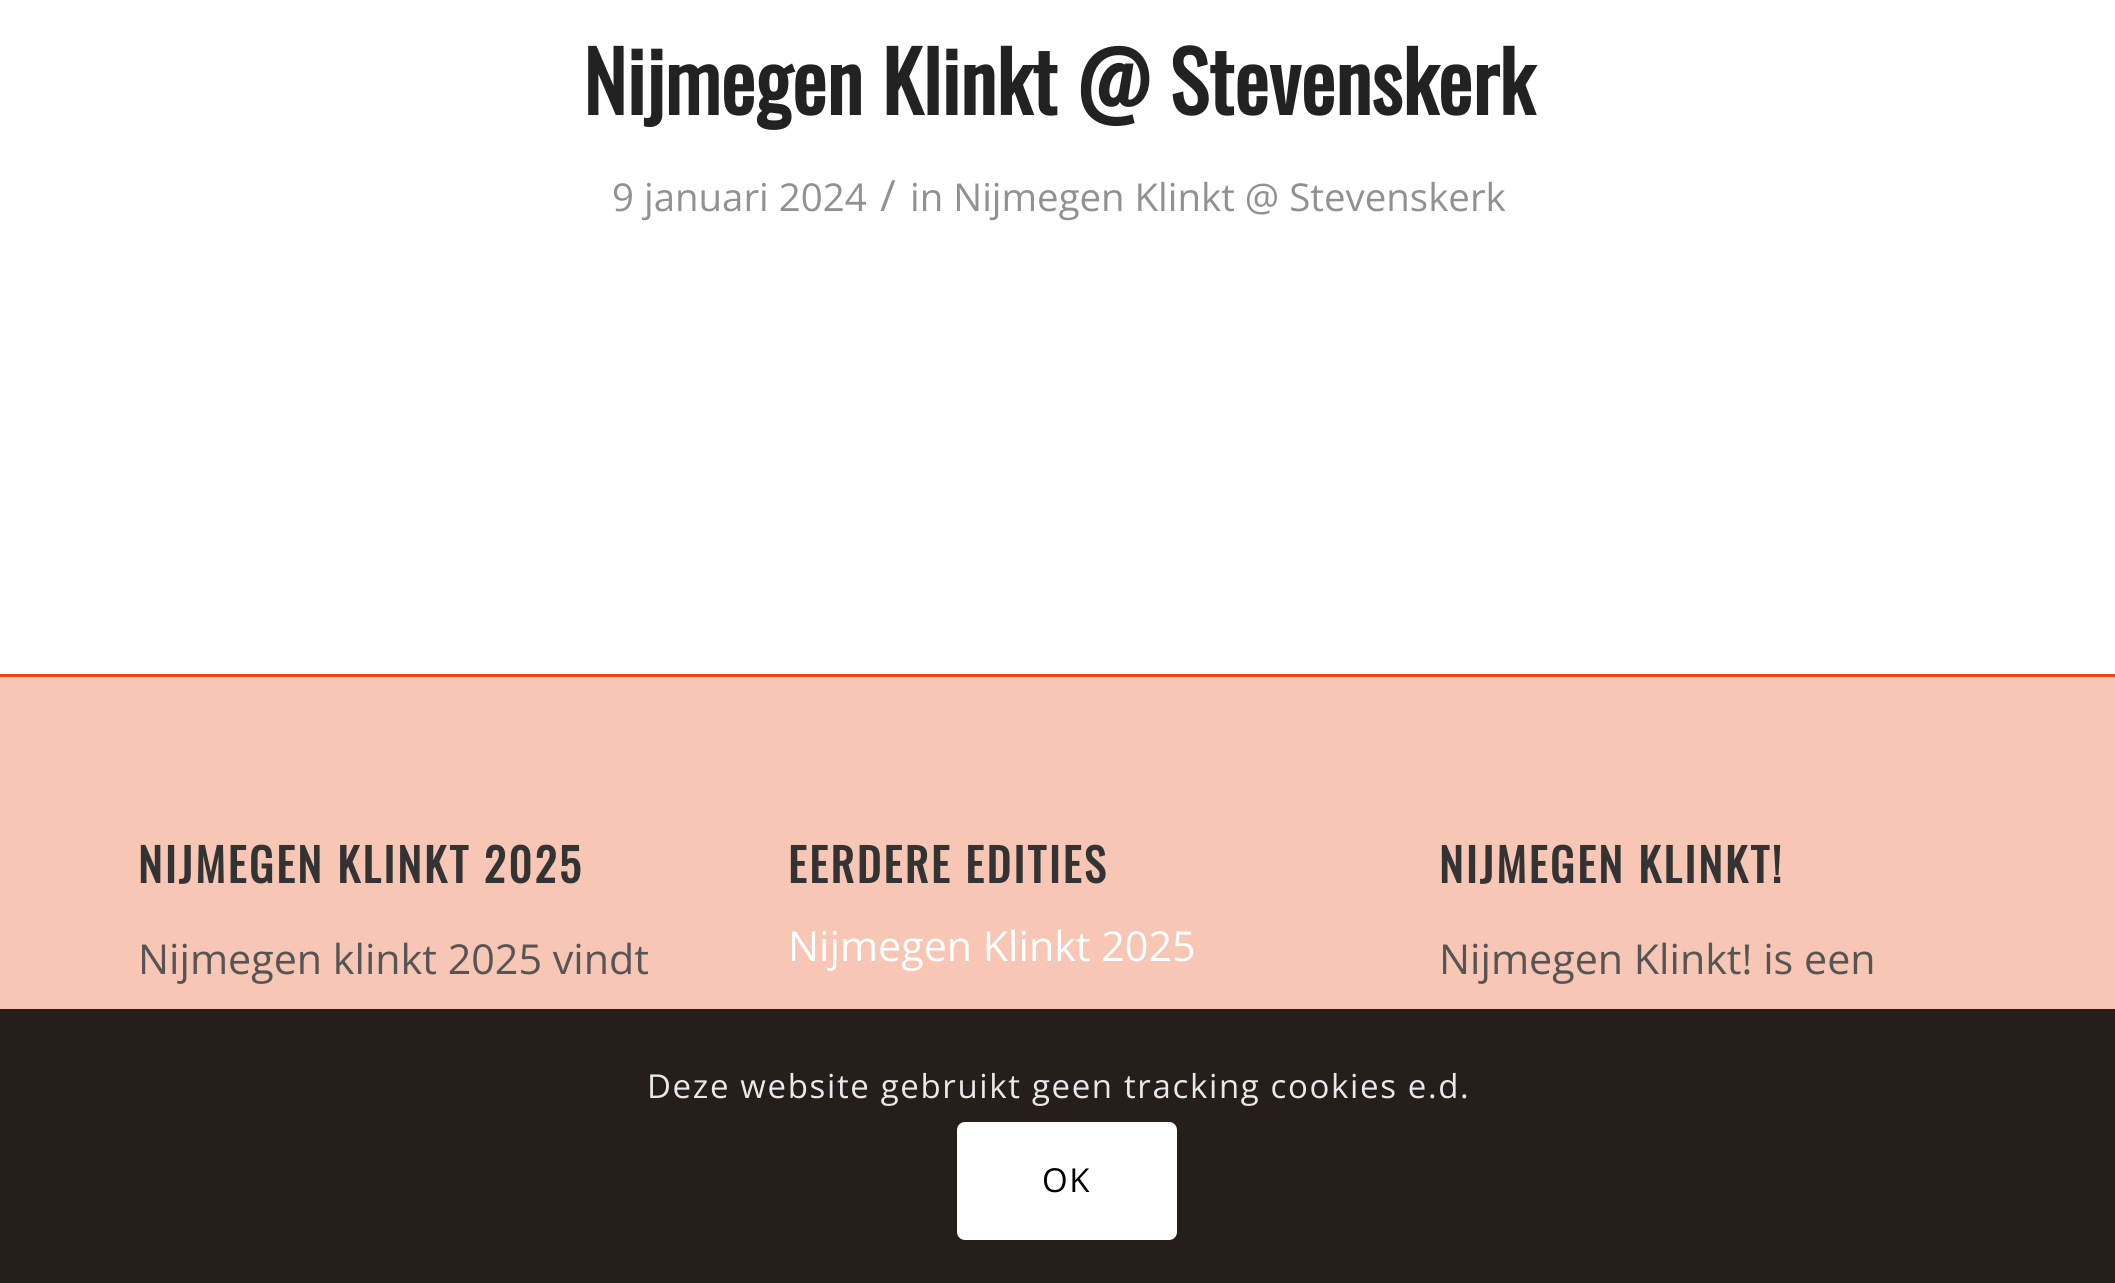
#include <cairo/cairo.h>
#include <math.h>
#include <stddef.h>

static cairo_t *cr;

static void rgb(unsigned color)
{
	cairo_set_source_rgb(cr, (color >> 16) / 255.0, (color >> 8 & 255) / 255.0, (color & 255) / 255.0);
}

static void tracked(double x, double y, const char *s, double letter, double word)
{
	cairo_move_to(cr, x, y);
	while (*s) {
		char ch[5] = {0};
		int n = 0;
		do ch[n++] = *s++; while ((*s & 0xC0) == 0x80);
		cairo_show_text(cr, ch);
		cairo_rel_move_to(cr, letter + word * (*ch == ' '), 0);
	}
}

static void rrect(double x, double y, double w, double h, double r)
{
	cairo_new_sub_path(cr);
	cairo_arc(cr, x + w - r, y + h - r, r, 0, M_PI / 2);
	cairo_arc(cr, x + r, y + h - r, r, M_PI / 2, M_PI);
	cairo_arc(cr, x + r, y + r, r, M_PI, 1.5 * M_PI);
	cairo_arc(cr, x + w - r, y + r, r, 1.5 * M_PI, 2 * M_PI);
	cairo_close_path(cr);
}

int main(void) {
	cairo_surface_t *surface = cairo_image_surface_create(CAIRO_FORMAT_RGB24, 2115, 1283);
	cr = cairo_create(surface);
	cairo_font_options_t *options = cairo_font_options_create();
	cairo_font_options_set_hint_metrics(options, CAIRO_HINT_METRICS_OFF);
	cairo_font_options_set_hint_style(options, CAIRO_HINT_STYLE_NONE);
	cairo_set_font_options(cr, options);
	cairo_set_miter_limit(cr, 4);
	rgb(0xffffff);
	cairo_paint(cr);
	rgb(0xf8c6b4);
	cairo_rectangle(cr, 0, 677, 2115, 606);
	cairo_fill(cr);
	rgb(0xe64d10);
	cairo_rectangle(cr, 0, 674, 2115, 3);
	cairo_fill(cr);
	cairo_set_source_rgba(cr, 0, 0, 0, 0.85);
	cairo_rectangle(cr, 0, 1009, 2115, 274);
	cairo_fill(cr);
	rgb(0xffffff);
	rrect(957, 1122, 220, 118, 8);
	cairo_fill(cr);
	cairo_select_font_face(cr, "Oswald", CAIRO_FONT_SLANT_NORMAL, CAIRO_FONT_WEIGHT_BOLD);
	cairo_set_font_size(cr, 82.5);
	rgb(0x222222);
	cairo_move_to(cr, 583, 115);
	cairo_show_text(cr, "Nijmegen Klinkt @ Stevenskerk");
	cairo_select_font_face(cr, "Open Sans", CAIRO_FONT_SLANT_NORMAL, CAIRO_FONT_WEIGHT_NORMAL);
	cairo_set_font_size(cr, 38.4);
	rgb(0x919191);
	cairo_move_to(cr, 612, 211);
	cairo_show_text(cr, "9 januari 2024");
	cairo_set_font_size(cr, 43);
	cairo_move_to(cr, 880, 211);
	cairo_show_text(cr, "/");
	cairo_set_font_size(cr, 38.4);
	cairo_move_to(cr, 910, 211);
	cairo_show_text(cr, "in Nijmegen Klinkt @ Stevenskerk");
	cairo_select_font_face(cr, "Oswald", CAIRO_FONT_SLANT_NORMAL, CAIRO_FONT_WEIGHT_BOLD);
	cairo_set_font_size(cr, 45.4);
	rgb(0x333333);
	tracked(138, 883, "NIJMEGEN KLINKT 2025", 2.75, 0);
	cairo_select_font_face(cr, "Open Sans", CAIRO_FONT_SLANT_NORMAL, CAIRO_FONT_WEIGHT_NORMAL);
	cairo_set_font_size(cr, 41.25);
	rgb(0x555555);
	cairo_move_to(cr, 138, 974);
	cairo_show_text(cr, "Nijmegen klinkt 2025 vindt");
	cairo_select_font_face(cr, "Oswald", CAIRO_FONT_SLANT_NORMAL, CAIRO_FONT_WEIGHT_BOLD);
	cairo_set_font_size(cr, 45.4);
	rgb(0x333333);
	tracked(788, 883, "EERDERE EDITIES", 2.75, 0);
	cairo_select_font_face(cr, "Open Sans", CAIRO_FONT_SLANT_NORMAL, CAIRO_FONT_WEIGHT_NORMAL);
	cairo_set_font_size(cr, 41.25);
	rgb(0xffffff);
	cairo_move_to(cr, 788, 961);
	cairo_show_text(cr, "Nijmegen Klinkt 2025");
	cairo_select_font_face(cr, "Oswald", CAIRO_FONT_SLANT_NORMAL, CAIRO_FONT_WEIGHT_BOLD);
	cairo_set_font_size(cr, 45.4);
	rgb(0x333333);
	tracked(1439, 883, "NIJMEGEN KLINKT!", 2.75, 0);
	cairo_select_font_face(cr, "Open Sans", CAIRO_FONT_SLANT_NORMAL, CAIRO_FONT_WEIGHT_NORMAL);
	cairo_set_font_size(cr, 41.25);
	rgb(0x555555);
	cairo_move_to(cr, 1439, 974);
	cairo_show_text(cr, "Nijmegen Klinkt! is een");
	cairo_set_font_size(cr, 33);
	rgb(0xe9e9e8);
	tracked(647, 1098, "Deze website gebruikt geen tracking cookies e.d.", 1.65, 0);
	rgb(0x000000);
	tracked(1042, 1192, "OK", 1.65, 0);
	cairo_surface_write_to_png(surface, "page.png");
	cairo_font_options_destroy(options);
	cairo_destroy(cr);
	cairo_surface_destroy(surface);
	return 0;
}
